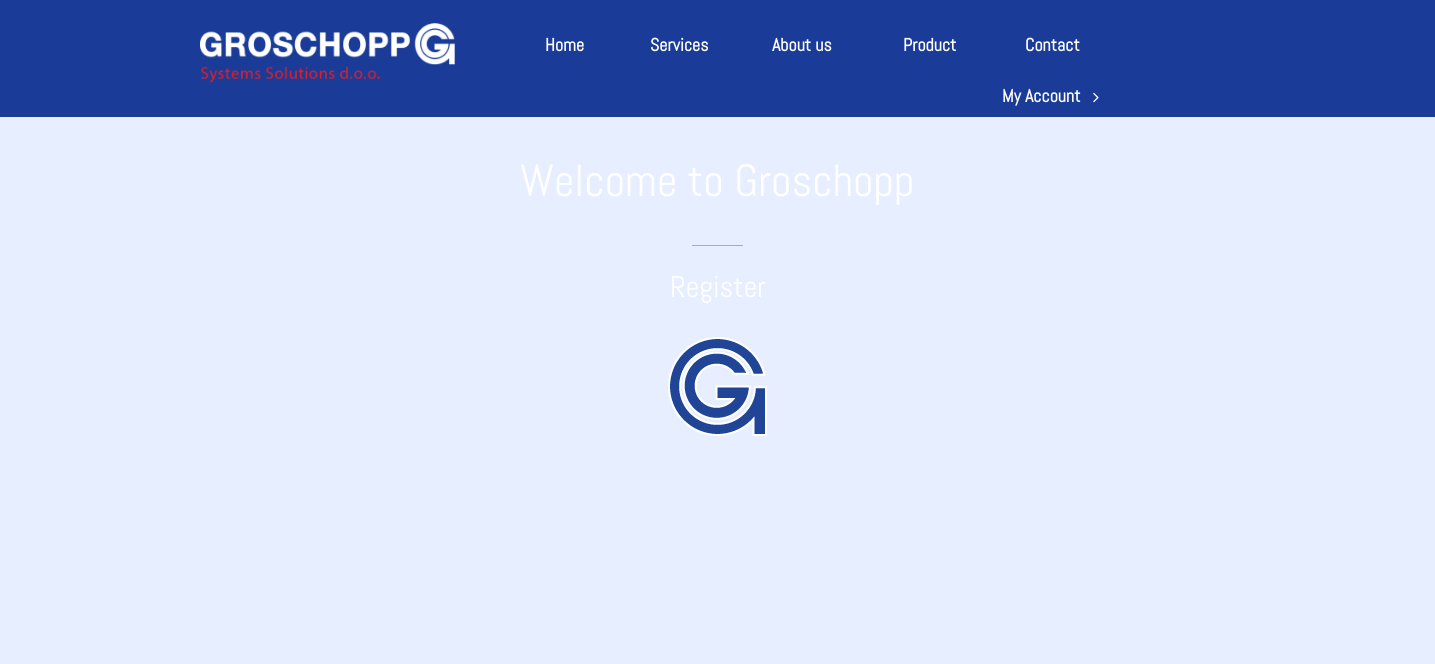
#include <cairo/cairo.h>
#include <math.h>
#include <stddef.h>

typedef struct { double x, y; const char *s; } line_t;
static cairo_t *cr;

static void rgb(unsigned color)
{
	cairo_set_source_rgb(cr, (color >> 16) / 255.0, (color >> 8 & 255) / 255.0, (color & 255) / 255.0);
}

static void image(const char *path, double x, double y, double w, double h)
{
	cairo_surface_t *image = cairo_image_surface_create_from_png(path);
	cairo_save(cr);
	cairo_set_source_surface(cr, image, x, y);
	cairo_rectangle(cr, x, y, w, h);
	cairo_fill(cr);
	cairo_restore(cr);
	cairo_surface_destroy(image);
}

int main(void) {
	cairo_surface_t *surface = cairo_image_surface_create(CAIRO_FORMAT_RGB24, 1435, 664);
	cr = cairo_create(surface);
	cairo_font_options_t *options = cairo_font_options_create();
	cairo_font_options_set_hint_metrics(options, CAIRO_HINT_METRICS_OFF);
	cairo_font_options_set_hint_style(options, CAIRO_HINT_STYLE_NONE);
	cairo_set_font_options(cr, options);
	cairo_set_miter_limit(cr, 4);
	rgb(0xe6eeff);
	cairo_paint(cr);
	rgb(0x1a3b97);
	cairo_rectangle(cr, 0, 0, 1435, 117);
	cairo_fill(cr);
	image("img/1.png", 200, 23, 255, 60);
	image("img/2.png", 1093, 92, 6, 11);
	rgb(0x6ec1e4);
	cairo_rectangle(cr, 692, 245, 51, 1);
	cairo_fill(cr);
	image("img/3.png", 668, 337, 99, 99);
	cairo_select_font_face(cr, "Abel", CAIRO_FONT_SLANT_NORMAL, CAIRO_FONT_WEIGHT_BOLD);
	cairo_set_font_size(cr, 18);
	rgb(0xffffff);
	{
		static const line_t items[] = {
			{545, 51, "Home"},
			{650, 51, "Services"},
			{772, 51, "About us"},
			{903, 51, "Product"},
			{1025, 51, "Contact"},
			{1002, 102, "My Account"},
		};
		for (size_t i = 0; i < sizeof items / sizeof *items; i++) {
			cairo_move_to(cr, items[i].x, items[i].y);
			cairo_show_text(cr, items[i].s);
		}
	}
	cairo_select_font_face(cr, "Abel", CAIRO_FONT_SLANT_NORMAL, CAIRO_FONT_WEIGHT_NORMAL);
	cairo_set_font_size(cr, 45);
	cairo_move_to(cr, 520, 196);
	cairo_show_text(cr, "Welcome to Groschopp");
	cairo_set_font_size(cr, 30);
	cairo_move_to(cr, 670, 297);
	cairo_show_text(cr, "Register");
	cairo_surface_write_to_png(surface, "page.png");
	cairo_font_options_destroy(options);
	cairo_destroy(cr);
	cairo_surface_destroy(surface);
	return 0;
}
